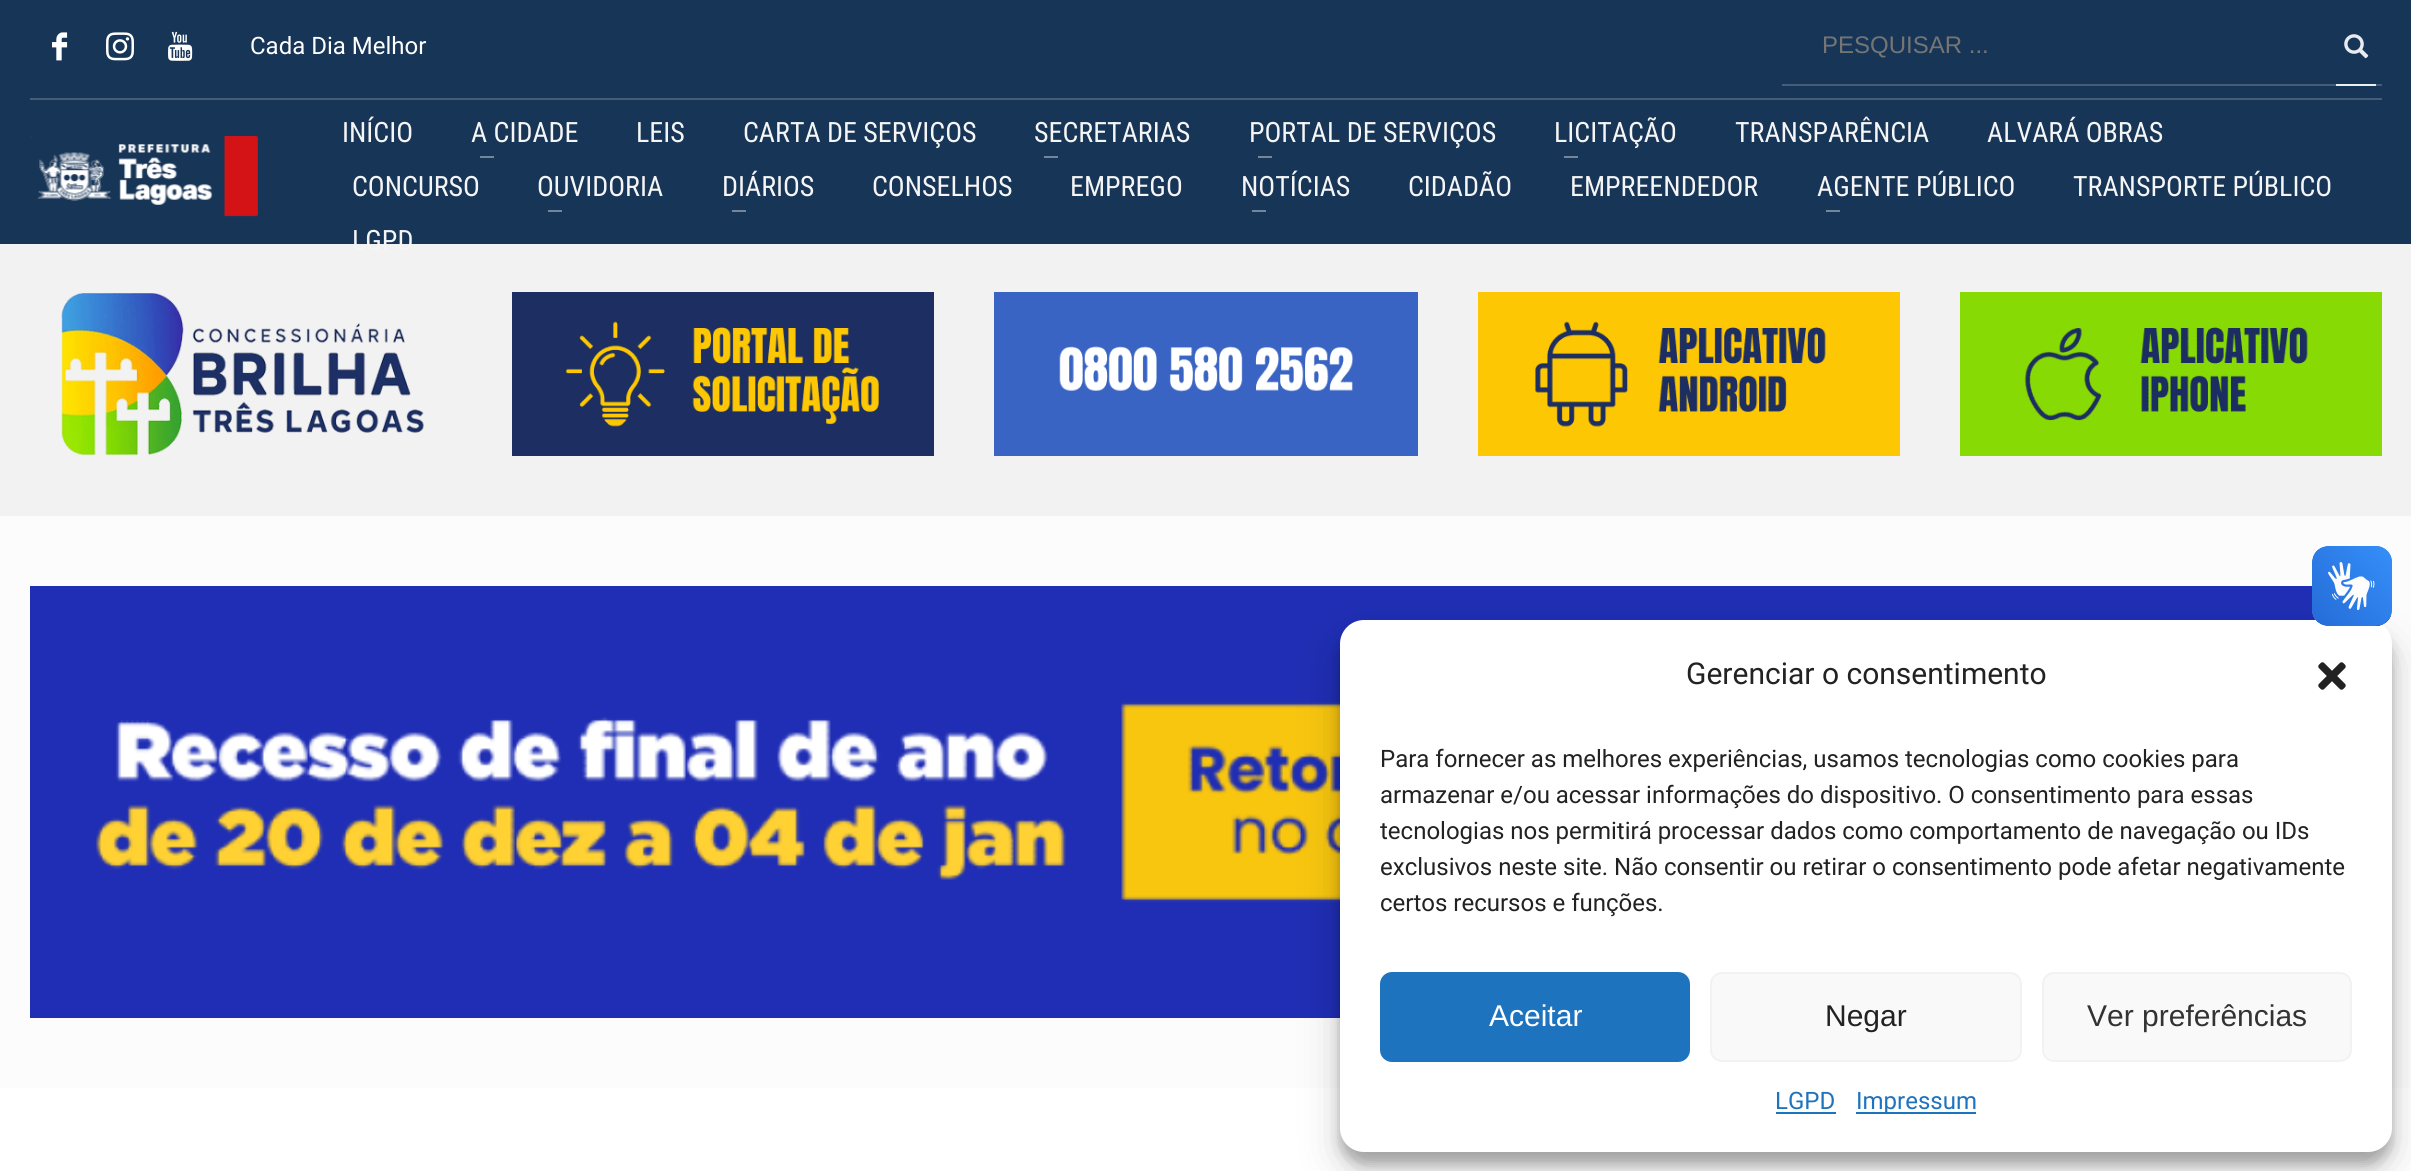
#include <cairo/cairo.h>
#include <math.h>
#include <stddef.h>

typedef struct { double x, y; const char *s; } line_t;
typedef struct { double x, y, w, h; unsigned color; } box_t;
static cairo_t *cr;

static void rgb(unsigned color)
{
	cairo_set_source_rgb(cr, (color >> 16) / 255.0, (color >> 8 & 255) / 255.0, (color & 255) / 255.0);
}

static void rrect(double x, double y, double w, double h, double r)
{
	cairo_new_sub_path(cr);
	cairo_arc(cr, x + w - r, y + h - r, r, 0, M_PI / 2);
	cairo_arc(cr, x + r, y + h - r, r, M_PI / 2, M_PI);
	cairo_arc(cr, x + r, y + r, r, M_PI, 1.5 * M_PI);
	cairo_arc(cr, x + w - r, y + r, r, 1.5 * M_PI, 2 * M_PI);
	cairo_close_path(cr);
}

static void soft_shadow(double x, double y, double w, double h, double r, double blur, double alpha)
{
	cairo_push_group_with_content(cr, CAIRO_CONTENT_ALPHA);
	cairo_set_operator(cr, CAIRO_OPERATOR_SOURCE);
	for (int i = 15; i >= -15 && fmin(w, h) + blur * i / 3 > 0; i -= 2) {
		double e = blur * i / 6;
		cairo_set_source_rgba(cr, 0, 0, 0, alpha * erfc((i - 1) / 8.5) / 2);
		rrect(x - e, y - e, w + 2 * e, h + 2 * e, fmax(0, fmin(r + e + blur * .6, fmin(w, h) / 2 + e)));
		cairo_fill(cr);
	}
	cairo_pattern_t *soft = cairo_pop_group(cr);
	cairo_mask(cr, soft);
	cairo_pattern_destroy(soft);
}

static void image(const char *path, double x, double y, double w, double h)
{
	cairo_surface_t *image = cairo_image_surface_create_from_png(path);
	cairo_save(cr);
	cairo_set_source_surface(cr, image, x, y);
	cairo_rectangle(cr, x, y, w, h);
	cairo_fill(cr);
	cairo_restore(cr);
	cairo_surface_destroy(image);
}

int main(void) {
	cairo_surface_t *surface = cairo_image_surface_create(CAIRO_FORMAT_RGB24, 2411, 1171);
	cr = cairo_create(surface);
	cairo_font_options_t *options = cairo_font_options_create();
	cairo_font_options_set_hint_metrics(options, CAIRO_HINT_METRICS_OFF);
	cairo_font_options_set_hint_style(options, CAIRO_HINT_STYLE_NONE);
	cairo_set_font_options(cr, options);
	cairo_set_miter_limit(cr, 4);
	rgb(0xffffff);
	cairo_paint(cr);
	rgb(0x173557);
	cairo_rectangle(cr, 0, 0, 2411, 244);
	cairo_fill(cr);
	image("img/1.png", 52, 32, 16, 29);
	image("img/2.png", 106, 32, 28, 29);
	image("img/3.png", 168, 31, 25, 30);
	rgb(0x455d79);
	cairo_rectangle(cr, 1782, 84, 600, 2);
	cairo_fill(cr);
	rgb(0xeceff2);
	cairo_rectangle(cr, 2336, 84, 40, 2);
	cairo_fill(cr);
	image("img/4.png", 2344, 34, 25, 25);
	rgb(0x455d79);
	cairo_rectangle(cr, 30, 98, 2352, 2);
	cairo_fill(cr);
	image("img/5.png", 30, 135, 228, 82);
	{
		static const box_t items[] = {
			{480, 156, 14, 2, 0x74869a},
			{1044, 156, 14, 2, 0x74869a},
			{1258, 156, 14, 2, 0x74869a},
			{1564, 156, 14, 2, 0x74869a},
			{548, 210, 14, 2, 0x74869a},
			{732, 210, 14, 2, 0x74869a},
			{1252, 210, 14, 2, 0x74869a},
			{1826, 210, 14, 2, 0x74869a},
			{0, 244, 2411, 272, 0xf2f2f2},
		};
		for (size_t i = 0; i < sizeof items / sizeof *items; i++) {
			rgb(items[i].color);
			cairo_rectangle(cr, items[i].x, items[i].y, items[i].w, items[i].h);
			cairo_fill(cr);
		}
	}
	image("img/6.png", 61, 293, 363, 163);
	image("img/7.png", 512, 292, 422, 164);
	image("img/8.png", 994, 292, 424, 164);
	image("img/9.png", 1478, 292, 422, 164);
	image("img/10.png", 1960, 292, 422, 164);
	rgb(0xfcfcfc);
	cairo_rectangle(cr, 0, 516, 2411, 572);
	cairo_fill(cr);
	image("img/11.png", 30, 586, 2352, 432);
	rgb(0x000000);
	soft_shadow(1340, 632, 1052, 532, 24, 6, 0.23);
	soft_shadow(1340, 640, 1052, 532, 24, 20, 0.19);
	rgb(0xffffff);
	rrect(1340, 620, 1052, 532, 24);
	cairo_fill(cr);
	image("img/12.png", 2312, 546, 80, 80);
	image("img/13.png", 2312, 546, 80, 80);
	image("img/14.png", 2318, 662, 28, 28);
	rgb(0x1e73be);
	rrect(1381, 973, 308, 88, 11);
	cairo_fill_preserve(cr);
	cairo_stroke(cr);
	rgb(0xf9f9f9);
	rrect(1711, 973, 310, 88, 11);
	cairo_fill_preserve(cr);
	rgb(0xf2f2f2);
	cairo_stroke(cr);
	rgb(0xf9f9f9);
	rrect(2043, 973, 308, 88, 11);
	cairo_fill_preserve(cr);
	rgb(0xf2f2f2);
	cairo_stroke(cr);
	rgb(0x1e73be);
	cairo_rectangle(cr, 1776, 1112, 60, 2);
	cairo_fill(cr);
	cairo_rectangle(cr, 1856, 1112, 120, 2);
	cairo_fill(cr);
	cairo_select_font_face(cr, "Roboto", CAIRO_FONT_SLANT_NORMAL, CAIRO_FONT_WEIGHT_NORMAL);
	cairo_set_font_size(cr, 24);
	rgb(0xffffff);
	cairo_move_to(cr, 250, 54);
	cairo_show_text(cr, "Cada Dia Melhor");
	cairo_select_font_face(cr, "Liberation Sans", CAIRO_FONT_SLANT_NORMAL, CAIRO_FONT_WEIGHT_NORMAL);
	rgb(0x757575);
	cairo_move_to(cr, 1822, 53);
	cairo_show_text(cr, "PESQUISAR ...");
	cairo_select_font_face(cr, "Roboto Condensed", CAIRO_FONT_SLANT_NORMAL, CAIRO_FONT_WEIGHT_NORMAL);
	cairo_set_font_size(cr, 28);
	rgb(0xf5f5f5);
	{
		static const line_t items[] = {
			{342, 142, "INÍCIO"},
			{471, 142, "A CIDADE"},
			{636, 142, "LEIS"},
			{743, 142, "CARTA DE SERVIÇOS"},
			{1034, 142, "SECRETARIAS"},
			{1249, 142, "PORTAL DE SERVIÇOS"},
			{1554, 142, "LICITAÇÃO"},
			{1735, 142, "TRANSPARÊNCIA"},
			{1987, 142, "ALVARÁ OBRAS"},
			{352, 196, "CONCURSO"},
			{537, 196, "OUVIDORIA"},
			{722, 196, "DIÁRIOS"},
			{872, 196, "CONSELHOS"},
			{1070, 196, "EMPREGO"},
			{1241, 196, "NOTÍCIAS"},
			{1408, 196, "CIDADÃO"},
			{1570, 196, "EMPREENDEDOR"},
			{1817, 196, "AGENTE PÚBLICO"},
			{2073, 196, "TRANSPORTE PÚBLICO"},
			{352, 250, "LGPD"},
		};
		for (size_t i = 0; i < sizeof items / sizeof *items; i++) {
			cairo_move_to(cr, items[i].x, items[i].y);
			cairo_show_text(cr, items[i].s);
		}
	}
	cairo_select_font_face(cr, "Roboto", CAIRO_FONT_SLANT_NORMAL, CAIRO_FONT_WEIGHT_NORMAL);
	cairo_set_font_size(cr, 30);
	rgb(0x222222);
	cairo_move_to(cr, 1686, 684);
	cairo_show_text(cr, "Gerenciar o consentimento");
	cairo_set_font_size(cr, 24);
	{
		static const line_t items[] = {
			{1380, 767, "Para fornecer as melhores experiências, usamos tecnologias como cookies para"},
			{1380, 803, "armazenar e/ou acessar informações do dispositivo. O consentimento para essas"},
			{1380, 839, "tecnologias nos permitirá processar dados como comportamento de navegação ou IDs"},
			{1380, 875, "exclusivos neste site. Não consentir ou retirar o consentimento pode afetar negativamente"},
			{1380, 911, "certos recursos e funções."},
		};
		for (size_t i = 0; i < sizeof items / sizeof *items; i++) {
			cairo_move_to(cr, items[i].x, items[i].y);
			cairo_show_text(cr, items[i].s);
		}
	}
	cairo_select_font_face(cr, "Liberation Sans", CAIRO_FONT_SLANT_NORMAL, CAIRO_FONT_WEIGHT_NORMAL);
	cairo_set_font_size(cr, 30);
	rgb(0xffffff);
	cairo_move_to(cr, 1489, 1026);
	cairo_show_text(cr, "Aceitar");
	rgb(0x222222);
	cairo_move_to(cr, 1825, 1026);
	cairo_show_text(cr, "Negar");
	rgb(0x333333);
	cairo_move_to(cr, 2087, 1026);
	cairo_show_text(cr, "Ver preferências");
	cairo_select_font_face(cr, "Roboto", CAIRO_FONT_SLANT_NORMAL, CAIRO_FONT_WEIGHT_NORMAL);
	cairo_set_font_size(cr, 24);
	rgb(0x1e73be);
	cairo_move_to(cr, 1775, 1109);
	cairo_show_text(cr, "LGPD");
	cairo_move_to(cr, 1856, 1109);
	cairo_show_text(cr, "Impressum");
	cairo_surface_write_to_png(surface, "page.png");
	cairo_font_options_destroy(options);
	cairo_destroy(cr);
	cairo_surface_destroy(surface);
	return 0;
}
